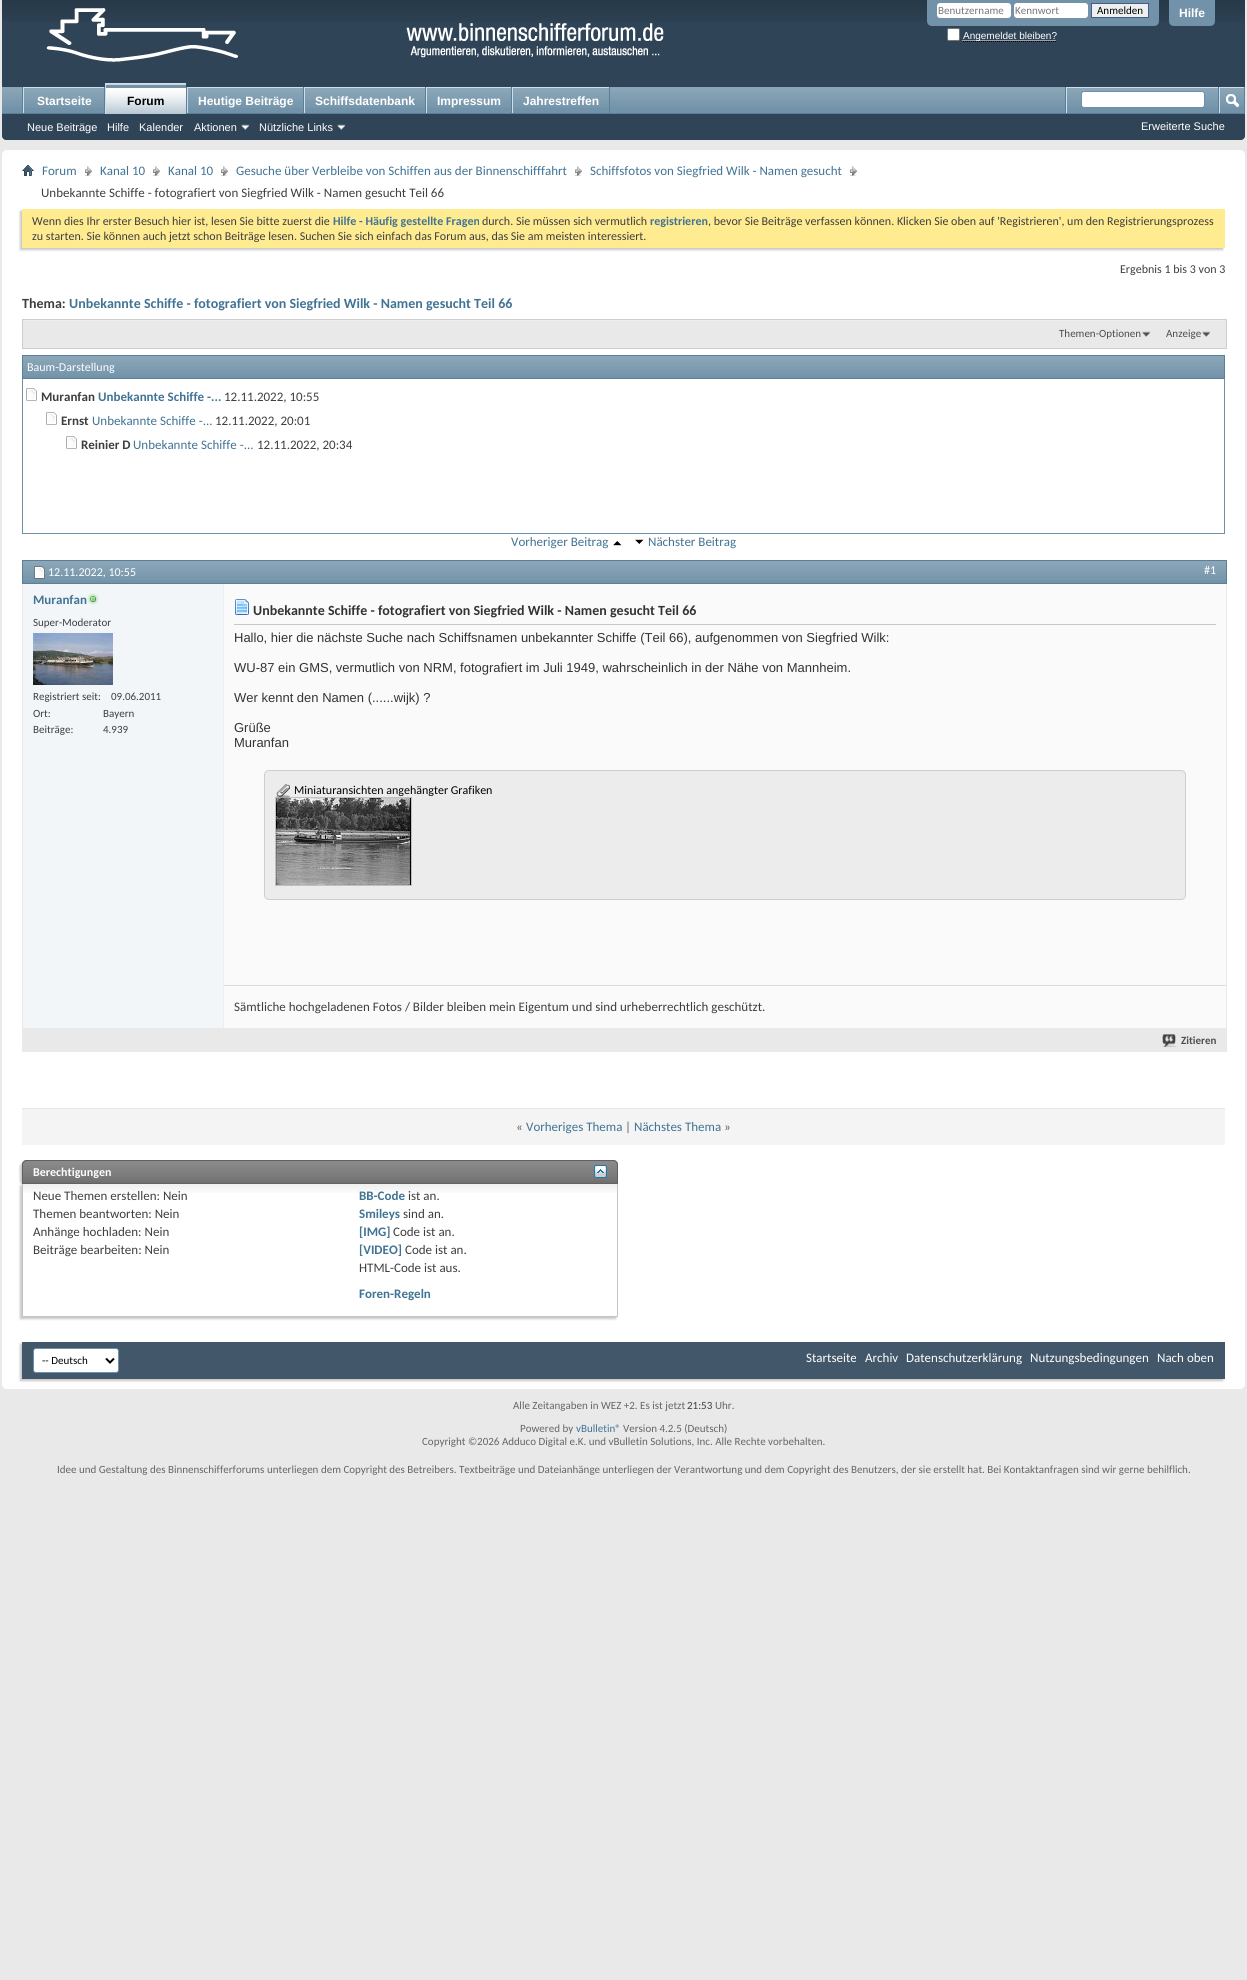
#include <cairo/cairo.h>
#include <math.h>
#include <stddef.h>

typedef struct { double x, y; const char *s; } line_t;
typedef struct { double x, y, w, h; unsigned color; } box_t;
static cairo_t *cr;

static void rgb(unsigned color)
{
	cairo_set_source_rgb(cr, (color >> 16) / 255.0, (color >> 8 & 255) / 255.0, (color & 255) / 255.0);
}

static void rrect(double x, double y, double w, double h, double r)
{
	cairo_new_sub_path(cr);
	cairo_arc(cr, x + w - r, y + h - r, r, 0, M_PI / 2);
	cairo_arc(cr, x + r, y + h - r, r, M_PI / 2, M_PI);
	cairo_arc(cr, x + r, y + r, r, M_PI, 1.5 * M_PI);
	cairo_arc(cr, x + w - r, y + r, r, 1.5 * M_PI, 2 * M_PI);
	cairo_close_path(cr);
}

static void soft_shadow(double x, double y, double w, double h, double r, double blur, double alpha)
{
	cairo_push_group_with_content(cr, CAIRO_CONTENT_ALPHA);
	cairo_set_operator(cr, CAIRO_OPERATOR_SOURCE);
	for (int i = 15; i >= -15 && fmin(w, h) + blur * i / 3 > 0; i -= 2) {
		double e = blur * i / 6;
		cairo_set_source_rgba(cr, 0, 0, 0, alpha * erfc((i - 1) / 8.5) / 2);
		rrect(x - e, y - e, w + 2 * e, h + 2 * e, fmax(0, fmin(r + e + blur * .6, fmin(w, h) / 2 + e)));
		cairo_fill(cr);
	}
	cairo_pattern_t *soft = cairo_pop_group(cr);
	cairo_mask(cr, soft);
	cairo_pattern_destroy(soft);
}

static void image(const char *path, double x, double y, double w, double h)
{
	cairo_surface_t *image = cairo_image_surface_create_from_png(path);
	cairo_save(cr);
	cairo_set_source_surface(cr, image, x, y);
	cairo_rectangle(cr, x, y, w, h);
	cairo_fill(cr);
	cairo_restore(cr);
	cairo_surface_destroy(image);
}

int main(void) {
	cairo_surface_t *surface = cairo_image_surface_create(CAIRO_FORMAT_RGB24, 1247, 1980);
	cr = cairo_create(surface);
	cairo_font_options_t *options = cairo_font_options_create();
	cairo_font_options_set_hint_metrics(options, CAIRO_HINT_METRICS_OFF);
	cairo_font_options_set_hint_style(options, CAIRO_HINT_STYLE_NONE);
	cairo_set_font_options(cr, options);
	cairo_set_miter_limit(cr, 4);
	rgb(0xe9e9e9);
	cairo_paint(cr);
	rgb(0x2f4456);
	cairo_new_path(cr);
	cairo_move_to(cr, 2, 0);
	cairo_line_to(cr, 1245, 0);
	cairo_line_to(cr, 1245, 135);
	cairo_curve_to(cr, 1245, 138, 1243, 140, 1240, 140);
	cairo_line_to(cr, 7, 140);
	cairo_curve_to(cr, 4, 140, 2, 138, 2, 135);
	cairo_close_path(cr);
	cairo_fill(cr);
	image("img/1.png", 2, 0, 1243, 22);
	image("img/2.png", 46, 8, 618, 54);
	rgb(0x7192a8);
	cairo_new_path(cr);
	cairo_move_to(cr, 927, 0);
	cairo_line_to(cr, 1159, 0);
	cairo_line_to(cr, 1159, 21);
	cairo_curve_to(cr, 1159, 24, 1157, 26, 1154, 26);
	cairo_line_to(cr, 932, 26);
	cairo_curve_to(cr, 929, 26, 927, 24, 927, 21);
	cairo_close_path(cr);
	cairo_fill(cr);
	rgb(0xffffff);
	rrect(937, 3, 74, 15, 3);
	cairo_fill(cr);
	rrect(1014, 3, 74, 15, 3);
	cairo_fill(cr);
	rgb(0xefefef);
	cairo_rectangle(cr, 1091.5, 3.5, 57, 14);
	cairo_fill_preserve(cr);
	rgb(0x415d8d);
	cairo_set_line_width(cr, 1);
	cairo_stroke(cr);
	rgb(0xffffff);
	rrect(947.5, 28.5, 12, 12, 1.5);
	cairo_fill_preserve(cr);
	rgb(0x767676);
	cairo_stroke(cr);
	cairo_new_path(cr);
	cairo_move_to(cr, 963, 41.5);
	cairo_line_to(cr, 1057, 41.5);
	rgb(0x000000);
	cairo_set_dash(cr, (double[]){1, 1}, 2, 0);
	cairo_stroke(cr);
	cairo_new_path(cr);
	cairo_move_to(cr, 962.5, 40.5);
	cairo_line_to(cr, 1056.5, 40.5);
	rgb(0xffffff);
	cairo_stroke(cr);
	rgb(0x7192a8);
	cairo_new_path(cr);
	cairo_move_to(cr, 1169, 0);
	cairo_line_to(cr, 1215, 0);
	cairo_line_to(cr, 1215, 21);
	cairo_curve_to(cr, 1215, 24, 1213, 26, 1210, 26);
	cairo_line_to(cr, 1174, 26);
	cairo_curve_to(cr, 1171, 26, 1169, 24, 1169, 21);
	cairo_close_path(cr);
	cairo_fill(cr);
	rgb(0x2f4456);
	cairo_new_path(cr);
	cairo_move_to(cr, 2, 87);
	cairo_line_to(cr, 1245, 87);
	cairo_line_to(cr, 1245, 135);
	cairo_curve_to(cr, 1245, 138, 1243, 140, 1240, 140);
	cairo_line_to(cr, 7, 140);
	cairo_curve_to(cr, 4, 140, 2, 138, 2, 135);
	cairo_close_path(cr);
	cairo_fill(cr);
	rgb(0x7192a8);
	cairo_rectangle(cr, 2, 87, 1242, 26);
	cairo_fill(cr);
	image("img/3.png", 2, 87, 1242, 20);
	{
		static const box_t items[] = {
			{104, 87, 1, 27, 0x5a7f97},
			{22, 87, 1, 27, 0x5a7f97},
			{24, 88, 80, 19, 0x7192a8},
		};
		for (size_t i = 0; i < sizeof items / sizeof *items; i++) {
			rgb(items[i].color);
			cairo_rectangle(cr, items[i].x, items[i].y, items[i].w, items[i].h);
			cairo_fill(cr);
		}
	}
	image("img/4.png", 24, 88, 80, 20);
	{
		static const box_t items[] = {
			{23, 87, 81, 1, 0xcedfeb},
			{23, 87, 1, 27, 0xcedfeb},
			{186, 87, 1, 26, 0x5a7f97},
			{303, 87, 1, 27, 0x5a7f97},
			{187, 87, 116, 1, 0xcedfeb},
			{187, 87, 1, 27, 0xcedfeb},
			{425, 87, 1, 27, 0x5a7f97},
			{304, 87, 121, 1, 0xcedfeb},
			{304, 87, 1, 27, 0xcedfeb},
			{511, 87, 1, 27, 0x5a7f97},
			{426, 87, 85, 1, 0xcedfeb},
			{426, 87, 1, 27, 0xcedfeb},
			{609, 87, 1, 27, 0x5a7f97},
			{512, 87, 97, 1, 0xcedfeb},
			{512, 87, 1, 27, 0xcedfeb},
			{2, 113, 1243, 1, 0x5a7f97},
			{106, 84, 80, 30, 0x7192a8},
		};
		for (size_t i = 0; i < sizeof items / sizeof *items; i++) {
			rgb(items[i].color);
			cairo_rectangle(cr, items[i].x, items[i].y, items[i].w, items[i].h);
			cairo_fill(cr);
		}
	}
	image("img/5.png", 106, 84, 80, 30);
	{
		static const box_t items[] = {
			{105, 83, 81, 1, 0xcedfeb},
			{105, 83, 1, 31, 0xcedfeb},
			{188, 88, 115, 19, 0x7192a8},
		};
		for (size_t i = 0; i < sizeof items / sizeof *items; i++) {
			rgb(items[i].color);
			cairo_rectangle(cr, items[i].x, items[i].y, items[i].w, items[i].h);
			cairo_fill(cr);
		}
	}
	image("img/6.png", 188, 88, 115, 20);
	cairo_rectangle(cr, 305, 88, 120, 19);
	cairo_fill(cr);
	image("img/7.png", 305, 88, 120, 20);
	cairo_rectangle(cr, 427, 88, 84, 19);
	cairo_fill(cr);
	image("img/8.png", 427, 88, 84, 20);
	cairo_rectangle(cr, 513, 88, 96, 19);
	cairo_fill(cr);
	image("img/9.png", 513, 88, 96, 20);
	image("img/10.png", 241, 124, 9, 6);
	image("img/10.png", 337, 124, 9, 6);
	{
		static const box_t items[] = {
			{1065, 87, 1, 26, 0x5a7f97},
			{1066, 87, 152, 1, 0xcedfeb},
			{1066, 87, 1, 26, 0xcedfeb},
		};
		for (size_t i = 0; i < sizeof items / sizeof *items; i++) {
			rgb(items[i].color);
			cairo_rectangle(cr, items[i].x, items[i].y, items[i].w, items[i].h);
			cairo_fill(cr);
		}
	}
	rgb(0xffffff);
	rrect(1081.5, 91.5, 123, 16, 2.5);
	cairo_fill_preserve(cr);
	rgb(0x6b91ab);
	cairo_set_dash(cr, NULL, 0, 0);
	cairo_stroke(cr);
	{
		static const box_t items[] = {
			{1244, 87, 1, 26, 0x5a7f97},
			{1218, 87, 1, 26, 0x5a7f97},
			{1219, 87, 25, 1, 0xcedfeb},
			{1219, 87, 1, 26, 0xcedfeb},
		};
		for (size_t i = 0; i < sizeof items / sizeof *items; i++) {
			rgb(items[i].color);
			cairo_rectangle(cr, items[i].x, items[i].y, items[i].w, items[i].h);
			cairo_fill(cr);
		}
	}
	image("img/11.png", 1226, 94, 13, 14);
	rgb(0xffffff);
	rrect(2, 150, 1243, 1239, 5);
	cairo_fill(cr);
	image("img/12.png", 22, 165, 12, 11);
	image("img/13.png", 85, 166, 7, 10);
	image("img/13.png", 153, 166, 7, 10);
	image("img/13.png", 221, 166, 7, 10);
	image("img/13.png", 575, 166, 7, 10);
	image("img/13.png", 850, 166, 7, 10);
	rgb(0xc8c8c8);
	soft_shadow(20, 211, 1203, 39, 0, 1, 1);
	{
		static const box_t items[] = {
			{22, 209, 1203, 39, 0xffeb90},
			{23, 321, 1203, 27, 0xe9e9e9},
			{22, 320, 1205, 1, 0xededed},
		};
		for (size_t i = 0; i < sizeof items / sizeof *items; i++) {
			rgb(items[i].color);
			cairo_rectangle(cr, items[i].x, items[i].y, items[i].w, items[i].h);
			cairo_fill(cr);
		}
	}
	cairo_rectangle(cr, 22.5, 319.5, 1204, 29);
	rgb(0xcecece);
	cairo_stroke(cr);
	image("img/14.png", 1142, 331, 9, 7);
	image("img/14.png", 1202, 331, 9, 7);
	rgb(0x7192a8);
	cairo_rectangle(cr, 23, 356, 1201, 22);
	cairo_fill(cr);
	image("img/15.png", 23, 356, 1201, 20);
	cairo_rectangle(cr, 22.5, 355.5, 1202, 23);
	rgb(0x5a7f97);
	cairo_stroke(cr);
	{
		static const box_t items[] = {
			{1224, 379, 1, 155, 0x6b91ab},
			{22, 533, 1203, 1, 0x6b91ab},
			{22, 379, 1, 155, 0x6b91ab},
		};
		for (size_t i = 0; i < sizeof items / sizeof *items; i++) {
			rgb(items[i].color);
			cairo_rectangle(cr, items[i].x, items[i].y, items[i].w, items[i].h);
			cairo_fill(cr);
		}
	}
	image("img/16.png", 26, 388, 11, 13);
	image("img/16.png", 46, 412, 11, 13);
	image("img/16.png", 66, 436, 11, 13);
	image("img/17.png", 613, 541, 9, 5);
	image("img/18.png", 635, 539, 9, 5);
	cairo_rectangle(cr, 22.5, 560.5, 1204, 491);
	rgb(0xe9e9e9);
	cairo_stroke(cr);
	rgb(0x7192a8);
	cairo_rectangle(cr, 23, 561, 1203, 22);
	cairo_fill(cr);
	image("img/19.png", 23, 561, 1203, 20);
	cairo_rectangle(cr, 22.5, 560.5, 1204, 23);
	rgb(0x5a7f97);
	cairo_stroke(cr);
	image("img/20.png", 34, 566, 11, 13);
	rgb(0xf2f6f8);
	cairo_rectangle(cr, 23, 584, 200, 444);
	cairo_fill(cr);
	image("img/21.png", 87, 593, 12, 12);
	image("img/22.png", 33, 633, 80, 52);
	{
		static const box_t items[] = {
			{224, 584, 1002, 444, 0xfafafa},
			{223, 584, 1, 444, 0xefefef},
			{234, 624, 982, 1, 0xc8c8c8},
		};
		for (size_t i = 0; i < sizeof items / sizeof *items; i++) {
			rgb(items[i].color);
			cairo_rectangle(cr, items[i].x, items[i].y, items[i].w, items[i].h);
			cairo_fill(cr);
		}
	}
	image("img/23.png", 235, 599, 14, 16);
	rgb(0xececec);
	rrect(264.5, 770.5, 921, 129, 4.5);
	cairo_fill_preserve(cr);
	rgb(0xcecece);
	cairo_stroke(cr);
	image("img/25.png", 275, 797, 137, 89);
	image("img/24.png", 276, 784, 14, 14);
	rgb(0xdddddd);
	cairo_rectangle(cr, 224, 985, 1002, 1);
	cairo_fill(cr);
	rgb(0xe9e9e9);
	cairo_rectangle(cr, 23, 1028, 1203, 23);
	cairo_fill(cr);
	image("img/26.png", 1162, 1034, 14, 13);
	rgb(0xf4f4f4);
	cairo_rectangle(cr, 22, 1109, 1203, 36);
	cairo_fill(cr);
	rgb(0xe7e7e7);
	cairo_rectangle(cr, 22, 1108, 1203, 1);
	cairo_fill(cr);
	rgb(0xc8c8c8);
	soft_shadow(20, 1162, 596, 24, 5, 1, 1);
	rgb(0x707070);
	cairo_new_path(cr);
	cairo_move_to(cr, 27, 1160);
	cairo_line_to(cr, 613, 1160);
	cairo_curve_to(cr, 616, 1160, 618, 1162, 618, 1165);
	cairo_line_to(cr, 618, 1184);
	cairo_line_to(cr, 22, 1184);
	cairo_line_to(cr, 22, 1165);
	cairo_curve_to(cr, 22, 1162, 24, 1160, 27, 1160);
	cairo_close_path(cr);
	cairo_fill(cr);
	image("img/27.png", 22, 1161, 596, 20);
	cairo_new_path(cr);
	cairo_move_to(cr, 27, 1160.5);
	cairo_line_to(cr, 613, 1160.5);
	cairo_curve_to(cr, 615.5, 1160.5, 617.5, 1162.5, 617.5, 1165);
	cairo_line_to(cr, 617.5, 1183.5);
	cairo_line_to(cr, 22.5, 1183.5);
	cairo_line_to(cr, 22.5, 1165);
	cairo_curve_to(cr, 22.5, 1162.5, 24.5, 1160.5, 27, 1160.5);
	cairo_close_path(cr);
	rgb(0x606060);
	cairo_stroke(cr);
	image("img/28.png", 594, 1165, 13, 13);
	rgb(0xc8c8c8);
	soft_shadow(20, 1186, 596, 133, 0, 1, 1);
	rgb(0xffffff);
	cairo_rectangle(cr, 23, 1184, 594, 132);
	cairo_fill(cr);
	image("img/29.png", 23, 1184, 594, 9);
	{
		static const box_t items[] = {
			{617, 1184, 1, 133, 0xc4c4c4},
			{22, 1316, 596, 1, 0xc4c4c4},
			{22, 1184, 1, 133, 0xc4c4c4},
		};
		for (size_t i = 0; i < sizeof items / sizeof *items; i++) {
			rgb(items[i].color);
			cairo_rectangle(cr, items[i].x, items[i].y, items[i].w, items[i].h);
			cairo_fill(cr);
		}
	}
	rgb(0xc8c8c8);
	soft_shadow(20, 1344, 1203, 37, 0, 1, 1);
	rgb(0x425769);
	cairo_rectangle(cr, 22, 1342, 1203, 37);
	cairo_fill(cr);
	rgb(0xffffff);
	rrect(33.5, 1348.5, 85, 24, 2.5);
	cairo_fill_preserve(cr);
	rgb(0x6b91ab);
	cairo_stroke(cr);
	cairo_new_path(cr);
	cairo_move_to(cr, 106, 1358.5);
	cairo_line_to(cr, 110, 1362.5);
	cairo_line_to(cr, 114, 1358.5);
	rgb(0x000000);
	cairo_set_line_width(cr, 2);
	cairo_stroke(cr);
	cairo_select_font_face(cr, "Carlito", CAIRO_FONT_SLANT_NORMAL, CAIRO_FONT_WEIGHT_NORMAL);
	cairo_set_font_size(cr, 11);
	rgb(0x777777);
	cairo_move_to(cr, 938, 14);
	cairo_show_text(cr, "Benutzername");
	cairo_move_to(cr, 1015, 14);
	cairo_show_text(cr, "Kennwort");
	rgb(0x000000);
	cairo_move_to(cr, 1097, 14);
	cairo_show_text(cr, "Anmelden");
	cairo_select_font_face(cr, "Liberation Sans", CAIRO_FONT_SLANT_NORMAL, CAIRO_FONT_WEIGHT_NORMAL);
	cairo_set_font_size(cr, 10);
	rgb(0xffffff);
	cairo_move_to(cr, 963, 39);
	cairo_show_text(cr, "Angemeldet bleiben?");
	cairo_select_font_face(cr, "Liberation Sans", CAIRO_FONT_SLANT_NORMAL, CAIRO_FONT_WEIGHT_BOLD);
	cairo_set_font_size(cr, 12);
	cairo_move_to(cr, 1179, 17);
	cairo_show_text(cr, "Hilfe");
	cairo_move_to(cr, 37, 105);
	cairo_show_text(cr, "Startseite");
	rgb(0x000000);
	cairo_move_to(cr, 127, 105);
	cairo_show_text(cr, "Forum");
	rgb(0xffffff);
	{
		static const line_t items[] = {
			{198, 105, "Heutige Beiträge"},
			{315, 105, "Schiffsdatenbank"},
			{437, 105, "Impressum"},
			{523, 105, "Jahrestreffen"},
		};
		for (size_t i = 0; i < sizeof items / sizeof *items; i++) {
			cairo_move_to(cr, items[i].x, items[i].y);
			cairo_show_text(cr, items[i].s);
		}
	}
	cairo_select_font_face(cr, "Liberation Sans", CAIRO_FONT_SLANT_NORMAL, CAIRO_FONT_WEIGHT_NORMAL);
	cairo_set_font_size(cr, 11);
	{
		static const line_t items[] = {
			{27, 131, "Neue Beiträge"},
			{107, 131, "Hilfe"},
			{139, 131, "Kalender"},
			{194, 131, "Aktionen"},
			{259, 131, "Nützliche Links"},
			{1141, 130, "Erweiterte Suche"},
		};
		for (size_t i = 0; i < sizeof items / sizeof *items; i++) {
			cairo_move_to(cr, items[i].x, items[i].y);
			cairo_show_text(cr, items[i].s);
		}
	}
	cairo_select_font_face(cr, "Carlito", CAIRO_FONT_SLANT_NORMAL, CAIRO_FONT_WEIGHT_NORMAL);
	cairo_set_font_size(cr, 13);
	rgb(0x417394);
	{
		static const line_t items[] = {
			{42, 175, "Forum"},
			{100, 175, "Kanal 10"},
			{168, 175, "Kanal 10"},
			{236, 175, "Gesuche über Verbleibe von Schiffen aus der Binnenschifffahrt"},
			{590, 175, "Schiffsfotos von Siegfried Wilk - Namen gesucht"},
		};
		for (size_t i = 0; i < sizeof items / sizeof *items; i++) {
			cairo_move_to(cr, items[i].x, items[i].y);
			cairo_show_text(cr, items[i].s);
		}
	}
	rgb(0x3e3e3e);
	cairo_move_to(cr, 41, 197);
	cairo_show_text(cr, "Unbekannte Schiffe - fotografiert von Siegfried Wilk - Namen gesucht Teil 66");
	cairo_set_font_size(cr, 12);
	cairo_move_to(cr, 32, 225);
	cairo_show_text(cr, "Wenn dies Ihr erster Besuch hier ist, lesen Sie bitte zuerst die");
	cairo_select_font_face(cr, "Carlito", CAIRO_FONT_SLANT_NORMAL, CAIRO_FONT_WEIGHT_BOLD);
	rgb(0x417394);
	cairo_move_to(cr, 333, 225);
	cairo_show_text(cr, "Hilfe - Häufig gestellte Fragen");
	cairo_select_font_face(cr, "Carlito", CAIRO_FONT_SLANT_NORMAL, CAIRO_FONT_WEIGHT_NORMAL);
	rgb(0x3e3e3e);
	cairo_move_to(cr, 482, 225);
	cairo_show_text(cr, "durch. Sie müssen sich vermutlich");
	cairo_select_font_face(cr, "Carlito", CAIRO_FONT_SLANT_NORMAL, CAIRO_FONT_WEIGHT_BOLD);
	rgb(0x417394);
	cairo_move_to(cr, 650, 225);
	cairo_show_text(cr, "registrieren");
	cairo_select_font_face(cr, "Carlito", CAIRO_FONT_SLANT_NORMAL, CAIRO_FONT_WEIGHT_NORMAL);
	rgb(0x3e3e3e);
	{
		static const line_t items[] = {
			{708, 225, ", bevor Sie Beiträge verfassen können. Klicken Sie oben auf 'Registrieren', um den Registrierungsprozess"},
			{32, 240, "zu starten. Sie können auch jetzt schon Beiträge lesen. Suchen Sie sich einfach das Forum aus, das Sie am meisten interessiert."},
			{1120, 273, "Ergebnis 1 bis 3 von 3"},
		};
		for (size_t i = 0; i < sizeof items / sizeof *items; i++) {
			cairo_move_to(cr, items[i].x, items[i].y);
			cairo_show_text(cr, items[i].s);
		}
	}
	cairo_select_font_face(cr, "Carlito", CAIRO_FONT_SLANT_NORMAL, CAIRO_FONT_WEIGHT_BOLD);
	cairo_set_font_size(cr, 14);
	cairo_move_to(cr, 22, 308);
	cairo_show_text(cr, "Thema:");
	rgb(0x417394);
	cairo_move_to(cr, 69, 308);
	cairo_show_text(cr, "Unbekannte Schiffe - fotografiert von Siegfried Wilk - Namen gesucht Teil 66");
	cairo_select_font_face(cr, "Carlito", CAIRO_FONT_SLANT_NORMAL, CAIRO_FONT_WEIGHT_NORMAL);
	cairo_set_font_size(cr, 11);
	rgb(0x4e4e4e);
	cairo_move_to(cr, 1059, 337);
	cairo_show_text(cr, "Themen-Optionen");
	cairo_move_to(cr, 1166, 337);
	cairo_show_text(cr, "Anzeige");
	cairo_set_font_size(cr, 12);
	rgb(0xffffff);
	cairo_move_to(cr, 27, 371);
	cairo_show_text(cr, "Baum-Darstellung");
	cairo_select_font_face(cr, "Carlito", CAIRO_FONT_SLANT_NORMAL, CAIRO_FONT_WEIGHT_BOLD);
	cairo_set_font_size(cr, 13);
	rgb(0x3e3e3e);
	cairo_move_to(cr, 41, 401);
	cairo_show_text(cr, "Muranfan");
	rgb(0x417394);
	cairo_move_to(cr, 98, 401);
	cairo_show_text(cr, "Unbekannte Schiffe -...");
	cairo_select_font_face(cr, "Carlito", CAIRO_FONT_SLANT_NORMAL, CAIRO_FONT_WEIGHT_NORMAL);
	rgb(0x3e3e3e);
	cairo_move_to(cr, 224, 401);
	cairo_show_text(cr, "12.11.2022, 10:55");
	cairo_select_font_face(cr, "Carlito", CAIRO_FONT_SLANT_NORMAL, CAIRO_FONT_WEIGHT_BOLD);
	cairo_move_to(cr, 61, 425);
	cairo_show_text(cr, "Ernst");
	cairo_select_font_face(cr, "Carlito", CAIRO_FONT_SLANT_NORMAL, CAIRO_FONT_WEIGHT_NORMAL);
	rgb(0x417394);
	cairo_move_to(cr, 92, 425);
	cairo_show_text(cr, "Unbekannte Schiffe -...");
	rgb(0x3e3e3e);
	cairo_move_to(cr, 215, 425);
	cairo_show_text(cr, "12.11.2022, 20:01");
	cairo_select_font_face(cr, "Carlito", CAIRO_FONT_SLANT_NORMAL, CAIRO_FONT_WEIGHT_BOLD);
	cairo_move_to(cr, 81, 449);
	cairo_show_text(cr, "Reinier D");
	cairo_select_font_face(cr, "Carlito", CAIRO_FONT_SLANT_NORMAL, CAIRO_FONT_WEIGHT_NORMAL);
	rgb(0x417394);
	cairo_move_to(cr, 133, 449);
	cairo_show_text(cr, "Unbekannte Schiffe -...");
	rgb(0x3e3e3e);
	cairo_move_to(cr, 257, 449);
	cairo_show_text(cr, "12.11.2022, 20:34");
	rgb(0x417394);
	cairo_move_to(cr, 511, 546);
	cairo_show_text(cr, "Vorheriger Beitrag");
	cairo_move_to(cr, 648, 546);
	cairo_show_text(cr, "Nächster Beitrag");
	cairo_set_font_size(cr, 12);
	rgb(0xffffff);
	cairo_move_to(cr, 48, 576);
	cairo_show_text(cr, "12.11.2022, 10:55");
	cairo_move_to(cr, 1204, 574);
	cairo_show_text(cr, "#1");
	cairo_select_font_face(cr, "Carlito", CAIRO_FONT_SLANT_NORMAL, CAIRO_FONT_WEIGHT_BOLD);
	cairo_set_font_size(cr, 13);
	rgb(0x417394);
	cairo_move_to(cr, 33, 604);
	cairo_show_text(cr, "Muranfan");
	cairo_select_font_face(cr, "Carlito", CAIRO_FONT_SLANT_NORMAL, CAIRO_FONT_WEIGHT_NORMAL);
	cairo_set_font_size(cr, 11);
	rgb(0x3e3e3e);
	{
		static const line_t items[] = {
			{33, 626, "Super-Moderator"},
			{33, 700, "Registriert seit:"},
			{111, 700, "09.06.2011"},
			{33, 717, "Ort:"},
			{103, 717, "Bayern"},
			{33, 733, "Beiträge:"},
			{103, 733, "4.939"},
		};
		for (size_t i = 0; i < sizeof items / sizeof *items; i++) {
			cairo_move_to(cr, items[i].x, items[i].y);
			cairo_show_text(cr, items[i].s);
		}
	}
	cairo_select_font_face(cr, "Carlito", CAIRO_FONT_SLANT_NORMAL, CAIRO_FONT_WEIGHT_BOLD);
	cairo_set_font_size(cr, 14);
	rgb(0x333333);
	cairo_move_to(cr, 253, 615);
	cairo_show_text(cr, "Unbekannte Schiffe - fotografiert von Siegfried Wilk - Namen gesucht Teil 66");
	cairo_select_font_face(cr, "Liberation Sans", CAIRO_FONT_SLANT_NORMAL, CAIRO_FONT_WEIGHT_NORMAL);
	cairo_set_font_size(cr, 13);
	{
		static const line_t items[] = {
			{234, 642, "Hallo, hier die nächste Suche nach Schiffsnamen unbekannter Schiffe (Teil 66), aufgenommen von Siegfried Wilk:"},
			{234, 672, "WU-87 ein GMS, vermutlich von NRM, fotografiert im Juli 1949, wahrscheinlich in der Nähe von Mannheim."},
			{234, 702, "Wer kennt den Namen (......wijk) ?"},
			{234, 732, "Grüße"},
			{234, 747, "Muranfan"},
		};
		for (size_t i = 0; i < sizeof items / sizeof *items; i++) {
			cairo_move_to(cr, items[i].x, items[i].y);
			cairo_show_text(cr, items[i].s);
		}
	}
	cairo_select_font_face(cr, "Carlito", CAIRO_FONT_SLANT_NORMAL, CAIRO_FONT_WEIGHT_NORMAL);
	cairo_set_font_size(cr, 12);
	rgb(0x000000);
	cairo_move_to(cr, 294, 794);
	cairo_show_text(cr, "Miniaturansichten angehängter Grafiken");
	cairo_set_font_size(cr, 13);
	rgb(0x3e3e3e);
	cairo_move_to(cr, 234, 1011);
	cairo_show_text(cr, "Sämtliche hochgeladenen Fotos / Bilder bleiben mein Eigentum und sind urheberrechtlich geschützt.");
	cairo_select_font_face(cr, "Carlito", CAIRO_FONT_SLANT_NORMAL, CAIRO_FONT_WEIGHT_BOLD);
	cairo_set_font_size(cr, 11);
	rgb(0x4e4e4e);
	cairo_move_to(cr, 1181, 1044);
	cairo_show_text(cr, "Zitieren");
	cairo_select_font_face(cr, "Carlito", CAIRO_FONT_SLANT_NORMAL, CAIRO_FONT_WEIGHT_NORMAL);
	cairo_set_font_size(cr, 13);
	rgb(0x5d5d5d);
	cairo_move_to(cr, 516, 1131);
	cairo_show_text(cr, "«");
	rgb(0x417394);
	cairo_move_to(cr, 526, 1131);
	cairo_show_text(cr, "Vorheriges Thema");
	rgb(0x5d5d5d);
	cairo_move_to(cr, 625, 1131);
	cairo_show_text(cr, "|");
	rgb(0x417394);
	cairo_move_to(cr, 634, 1131);
	cairo_show_text(cr, "Nächstes Thema");
	rgb(0x5d5d5d);
	cairo_move_to(cr, 724, 1131);
	cairo_show_text(cr, "»");
	cairo_select_font_face(cr, "Carlito", CAIRO_FONT_SLANT_NORMAL, CAIRO_FONT_WEIGHT_BOLD);
	cairo_set_font_size(cr, 12);
	rgb(0xffffff);
	cairo_move_to(cr, 33, 1176);
	cairo_show_text(cr, "Berechtigungen");
	cairo_select_font_face(cr, "Carlito", CAIRO_FONT_SLANT_NORMAL, CAIRO_FONT_WEIGHT_NORMAL);
	cairo_set_font_size(cr, 13);
	rgb(0x3e3e3e);
	{
		static const line_t items[] = {
			{33, 1200, "Neue Themen erstellen: Nein"},
			{33, 1218, "Themen beantworten: Nein"},
			{33, 1236, "Anhänge hochladen: Nein"},
			{33, 1254, "Beiträge bearbeiten: Nein"},
		};
		for (size_t i = 0; i < sizeof items / sizeof *items; i++) {
			cairo_move_to(cr, items[i].x, items[i].y);
			cairo_show_text(cr, items[i].s);
		}
	}
	cairo_select_font_face(cr, "Carlito", CAIRO_FONT_SLANT_NORMAL, CAIRO_FONT_WEIGHT_BOLD);
	rgb(0x417394);
	cairo_move_to(cr, 359, 1200);
	cairo_show_text(cr, "BB-Code");
	cairo_select_font_face(cr, "Carlito", CAIRO_FONT_SLANT_NORMAL, CAIRO_FONT_WEIGHT_NORMAL);
	rgb(0x3e3e3e);
	cairo_move_to(cr, 408, 1200);
	cairo_show_text(cr, "ist an.");
	cairo_select_font_face(cr, "Carlito", CAIRO_FONT_SLANT_NORMAL, CAIRO_FONT_WEIGHT_BOLD);
	rgb(0x417394);
	cairo_move_to(cr, 359, 1218);
	cairo_show_text(cr, "Smileys");
	cairo_select_font_face(cr, "Carlito", CAIRO_FONT_SLANT_NORMAL, CAIRO_FONT_WEIGHT_NORMAL);
	rgb(0x3e3e3e);
	cairo_move_to(cr, 403, 1218);
	cairo_show_text(cr, "sind an.");
	cairo_select_font_face(cr, "Carlito", CAIRO_FONT_SLANT_NORMAL, CAIRO_FONT_WEIGHT_BOLD);
	rgb(0x417394);
	cairo_move_to(cr, 359, 1236);
	cairo_show_text(cr, "[IMG]");
	cairo_select_font_face(cr, "Carlito", CAIRO_FONT_SLANT_NORMAL, CAIRO_FONT_WEIGHT_NORMAL);
	rgb(0x3e3e3e);
	cairo_move_to(cr, 393, 1236);
	cairo_show_text(cr, "Code ist an.");
	cairo_select_font_face(cr, "Carlito", CAIRO_FONT_SLANT_NORMAL, CAIRO_FONT_WEIGHT_BOLD);
	rgb(0x417394);
	cairo_move_to(cr, 359, 1254);
	cairo_show_text(cr, "[VIDEO]");
	cairo_select_font_face(cr, "Carlito", CAIRO_FONT_SLANT_NORMAL, CAIRO_FONT_WEIGHT_NORMAL);
	rgb(0x3e3e3e);
	cairo_move_to(cr, 405, 1254);
	cairo_show_text(cr, "Code ist an.");
	cairo_move_to(cr, 359, 1272);
	cairo_show_text(cr, "HTML-Code ist aus.");
	cairo_select_font_face(cr, "Carlito", CAIRO_FONT_SLANT_NORMAL, CAIRO_FONT_WEIGHT_BOLD);
	rgb(0x417394);
	cairo_move_to(cr, 359, 1298);
	cairo_show_text(cr, "Foren-Regeln");
	cairo_select_font_face(cr, "Carlito", CAIRO_FONT_SLANT_NORMAL, CAIRO_FONT_WEIGHT_NORMAL);
	cairo_set_font_size(cr, 11);
	rgb(0x000000);
	cairo_move_to(cr, 42, 1364);
	cairo_show_text(cr, "-- Deutsch");
	cairo_set_font_size(cr, 13);
	rgb(0xffffff);
	{
		static const line_t items[] = {
			{806, 1362, "Startseite"},
			{865, 1362, "Archiv"},
			{906, 1362, "Datenschutzerklärung"},
			{1030, 1362, "Nutzungsbedingungen"},
			{1157, 1362, "Nach oben"},
		};
		for (size_t i = 0; i < sizeof items / sizeof *items; i++) {
			cairo_move_to(cr, items[i].x, items[i].y);
			cairo_show_text(cr, items[i].s);
		}
	}
	cairo_set_font_size(cr, 11);
	rgb(0x666666);
	cairo_move_to(cr, 513, 1409);
	cairo_show_text(cr, "Alle Zeitangaben in WEZ +2. Es ist jetzt");
	rgb(0x3e3e3e);
	cairo_move_to(cr, 687, 1409);
	cairo_show_text(cr, "21:53");
	rgb(0x666666);
	cairo_move_to(cr, 715, 1409);
	cairo_show_text(cr, "Uhr.");
	cairo_move_to(cr, 520, 1432);
	cairo_show_text(cr, "Powered by");
	rgb(0x417394);
	cairo_move_to(cr, 576, 1432);
	cairo_show_text(cr, "vBulletin®");
	rgb(0x666666);
	{
		static const line_t items[] = {
			{623, 1432, "Version 4.2.5 (Deutsch)"},
			{422, 1445, "Copyright ©2026 Adduco Digital e.K. und vBulletin Solutions, Inc. Alle Rechte vorbehalten."},
			{57, 1473, "Idee und Gestaltung des Binnenschifferforums unterliegen dem Copyright des Betreibers. Textbeiträge und Dateianhänge unterliegen der Verantwortung und dem Copyright des Benutzers, der sie erstellt hat. Bei Kontaktanfragen sind wir gerne behilflich."},
		};
		for (size_t i = 0; i < sizeof items / sizeof *items; i++) {
			cairo_move_to(cr, items[i].x, items[i].y);
			cairo_show_text(cr, items[i].s);
		}
	}
	cairo_surface_write_to_png(surface, "page.png");
	cairo_font_options_destroy(options);
	cairo_destroy(cr);
	cairo_surface_destroy(surface);
	return 0;
}
